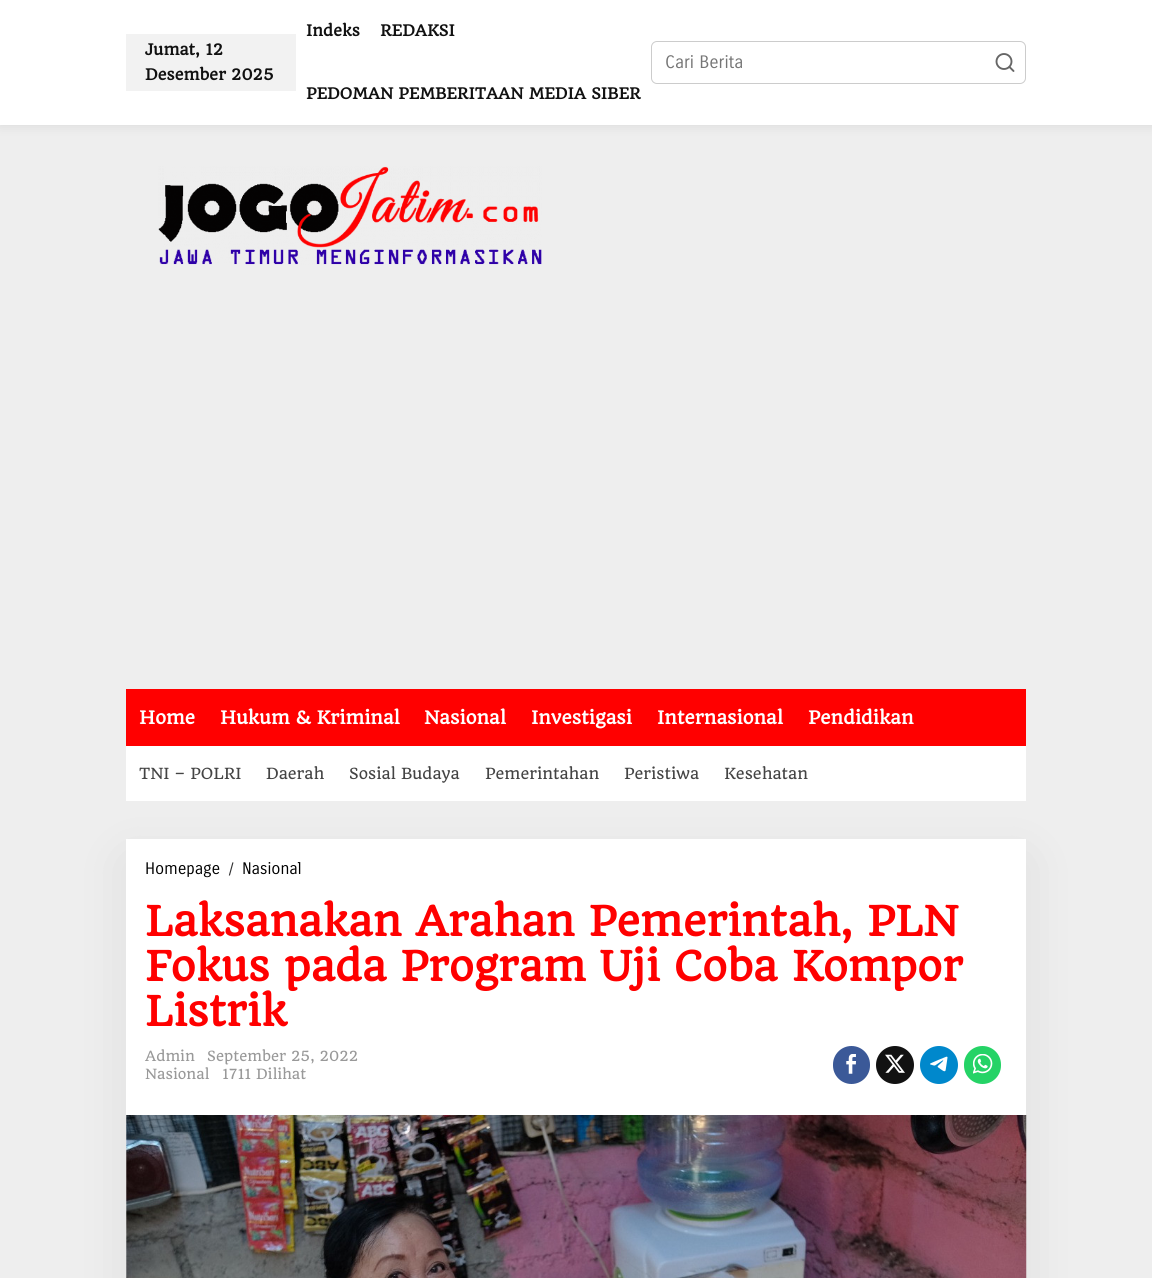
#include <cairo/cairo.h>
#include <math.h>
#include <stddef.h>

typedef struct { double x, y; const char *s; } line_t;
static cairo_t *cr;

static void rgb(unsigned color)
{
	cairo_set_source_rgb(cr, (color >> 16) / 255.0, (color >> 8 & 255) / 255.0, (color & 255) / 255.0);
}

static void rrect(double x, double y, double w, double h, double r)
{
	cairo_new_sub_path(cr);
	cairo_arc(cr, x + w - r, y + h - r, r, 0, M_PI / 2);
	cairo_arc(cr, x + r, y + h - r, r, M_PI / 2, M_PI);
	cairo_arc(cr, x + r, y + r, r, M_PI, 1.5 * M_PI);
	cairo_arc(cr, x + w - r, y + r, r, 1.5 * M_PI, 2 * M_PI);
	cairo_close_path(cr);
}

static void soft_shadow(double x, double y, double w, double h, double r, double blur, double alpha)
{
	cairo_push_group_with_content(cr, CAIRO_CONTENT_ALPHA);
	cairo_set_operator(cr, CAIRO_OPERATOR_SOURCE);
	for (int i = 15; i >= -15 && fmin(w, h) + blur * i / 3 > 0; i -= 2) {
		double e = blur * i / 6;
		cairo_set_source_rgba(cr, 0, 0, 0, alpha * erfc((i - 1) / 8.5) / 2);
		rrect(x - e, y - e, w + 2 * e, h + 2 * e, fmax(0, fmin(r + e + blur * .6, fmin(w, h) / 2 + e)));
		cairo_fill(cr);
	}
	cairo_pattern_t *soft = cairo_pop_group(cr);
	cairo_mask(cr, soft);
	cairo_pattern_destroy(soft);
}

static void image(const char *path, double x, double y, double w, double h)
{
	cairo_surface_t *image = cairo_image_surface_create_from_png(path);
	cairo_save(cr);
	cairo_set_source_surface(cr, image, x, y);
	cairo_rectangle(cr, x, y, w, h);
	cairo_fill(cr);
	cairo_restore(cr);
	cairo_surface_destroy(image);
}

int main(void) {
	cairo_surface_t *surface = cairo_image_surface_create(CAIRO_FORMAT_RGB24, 1152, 1278);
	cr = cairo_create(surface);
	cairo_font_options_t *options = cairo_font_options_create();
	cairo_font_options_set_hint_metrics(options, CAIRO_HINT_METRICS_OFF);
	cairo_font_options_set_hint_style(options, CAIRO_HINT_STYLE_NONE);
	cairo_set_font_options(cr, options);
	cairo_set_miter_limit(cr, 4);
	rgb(0xeeeeee);
	cairo_paint(cr);
	rgb(0x000000);
	soft_shadow(0, 0, 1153, 125, 0, 6, 0.1);
	rgb(0xffffff);
	cairo_rectangle(cr, 0, 0, 1152, 125);
	cairo_fill(cr);
	rgb(0xf2f2f2);
	cairo_rectangle(cr, 126, 34, 170, 57);
	cairo_fill(cr);
	rrect(651.5, 41.5, 374, 42, 5.5);
	rgb(0xcccccc);
	cairo_set_line_width(cr, 1);
	cairo_stroke(cr);
	cairo_arc(cr, 1004, 61.5, 7.5, 0, 2 * M_PI);
	rgb(0x666666);
	cairo_set_line_width(cr, 1.9);
	cairo_stroke(cr);
	cairo_new_path(cr);
	cairo_move_to(cr, 1013.5, 71);
	cairo_line_to(cr, 1009.5, 67);
	cairo_set_line_cap(cr, CAIRO_LINE_CAP_ROUND);
	cairo_set_line_join(cr, CAIRO_LINE_JOIN_ROUND);
	cairo_stroke(cr);
	image("img/1.png", 158, 166, 384, 99);
	rgb(0xff0000);
	cairo_rectangle(cr, 126, 689, 900, 57);
	cairo_fill(cr);
	rgb(0xffffff);
	cairo_rectangle(cr, 126, 746, 900, 55);
	cairo_fill(cr);
	rgb(0x000000);
	soft_shadow(126, 859, 900, 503, 0, 28, 0.07);
	rgb(0xffffff);
	cairo_rectangle(cr, 126, 839, 900, 439);
	cairo_fill(cr);
	rgb(0x3b5998);
	rrect(833, 1046, 37, 38, 18.5);
	cairo_fill(cr);
	image("img/2.png", 846, 1054, 10, 20);
	rgb(0x121212);
	cairo_arc(cr, 895, 1065, 19, 0, 2 * M_PI);
	cairo_fill(cr);
	image("img/3.png", 885, 1054, 20, 19);
	rgb(0x0088cc);
	cairo_arc(cr, 939, 1065, 19, 0, 2 * M_PI);
	cairo_fill(cr);
	image("img/4.png", 930, 1056, 18, 16);
	rgb(0x25d366);
	rrect(964, 1046, 37, 38, 18.5);
	cairo_fill(cr);
	image("img/5.png", 973, 1054, 20, 20);
	image("img/6.png", 126, 1115, 901, 163);
	cairo_select_font_face(cr, "Quando", CAIRO_FONT_SLANT_NORMAL, CAIRO_FONT_WEIGHT_BOLD);
	cairo_set_font_size(cr, 15);
	rgb(0x111111);
	{
		static const line_t items[] = {
			{145, 55, "Jumat, 12"},
			{145, 80, "Desember 2025"},
			{306, 36, "Indeks"},
			{380, 36, "REDAKSI"},
			{306, 99, "PEDOMAN PEMBERITAAN MEDIA SIBER"},
		};
		for (size_t i = 0; i < sizeof items / sizeof *items; i++) {
			cairo_move_to(cr, items[i].x, items[i].y);
			cairo_show_text(cr, items[i].s);
		}
	}
	cairo_select_font_face(cr, "Carrois Gothic", CAIRO_FONT_SLANT_NORMAL, CAIRO_FONT_WEIGHT_NORMAL);
	cairo_set_font_size(cr, 17.5);
	rgb(0x757575);
	cairo_move_to(cr, 665, 68);
	cairo_show_text(cr, "Cari Berita");
	cairo_select_font_face(cr, "Quando", CAIRO_FONT_SLANT_NORMAL, CAIRO_FONT_WEIGHT_BOLD);
	rgb(0xffffff);
	{
		static const line_t items[] = {
			{139, 724, "Home"},
			{220, 724, "Hukum & Kriminal"},
			{424, 724, "Nasional"},
			{531, 724, "Investigasi"},
			{657, 724, "Internasional"},
			{808, 724, "Pendidikan"},
		};
		for (size_t i = 0; i < sizeof items / sizeof *items; i++) {
			cairo_move_to(cr, items[i].x, items[i].y);
			cairo_show_text(cr, items[i].s);
		}
	}
	cairo_select_font_face(cr, "Quando", CAIRO_FONT_SLANT_NORMAL, CAIRO_FONT_WEIGHT_NORMAL);
	cairo_set_font_size(cr, 15);
	rgb(0x444444);
	{
		static const line_t items[] = {
			{139, 779, "TNI – POLRI"},
			{266, 779, "Daerah"},
			{349, 779, "Sosial Budaya"},
			{485, 779, "Pemerintahan"},
			{624, 779, "Peristiwa"},
			{724, 779, "Kesehatan"},
		};
		for (size_t i = 0; i < sizeof items / sizeof *items; i++) {
			cairo_move_to(cr, items[i].x, items[i].y);
			cairo_show_text(cr, items[i].s);
		}
	}
	cairo_select_font_face(cr, "Carrois Gothic", CAIRO_FONT_SLANT_NORMAL, CAIRO_FONT_WEIGHT_NORMAL);
	cairo_set_font_size(cr, 16.25);
	rgb(0x000000);
	cairo_move_to(cr, 145, 874);
	cairo_show_text(cr, "Homepage");
	rgb(0x323233);
	cairo_move_to(cr, 229, 874);
	cairo_show_text(cr, "/");
	rgb(0x000000);
	cairo_move_to(cr, 242, 874);
	cairo_show_text(cr, "Nasional");
	cairo_select_font_face(cr, "Quando", CAIRO_FONT_SLANT_NORMAL, CAIRO_FONT_WEIGHT_BOLD);
	cairo_set_font_size(cr, 40);
	rgb(0xff0000);
	{
		static const line_t items[] = {
			{145, 936, "Laksanakan Arahan Pemerintah, PLN"},
			{145, 981, "Fokus pada Program Uji Coba Kompor"},
			{145, 1026, "Listrik"},
		};
		for (size_t i = 0; i < sizeof items / sizeof *items; i++) {
			cairo_move_to(cr, items[i].x, items[i].y);
			cairo_show_text(cr, items[i].s);
		}
	}
	cairo_select_font_face(cr, "Quando", CAIRO_FONT_SLANT_NORMAL, CAIRO_FONT_WEIGHT_NORMAL);
	cairo_set_font_size(cr, 13.75);
	rgb(0x999999);
	{
		static const line_t items[] = {
			{145, 1061, "Admin"},
			{207, 1061, "September 25, 2022"},
			{145, 1079, "Nasional"},
			{222, 1079, "1711 Dilihat"},
		};
		for (size_t i = 0; i < sizeof items / sizeof *items; i++) {
			cairo_move_to(cr, items[i].x, items[i].y);
			cairo_show_text(cr, items[i].s);
		}
	}
	cairo_surface_write_to_png(surface, "page.png");
	cairo_font_options_destroy(options);
	cairo_destroy(cr);
	cairo_surface_destroy(surface);
	return 0;
}
